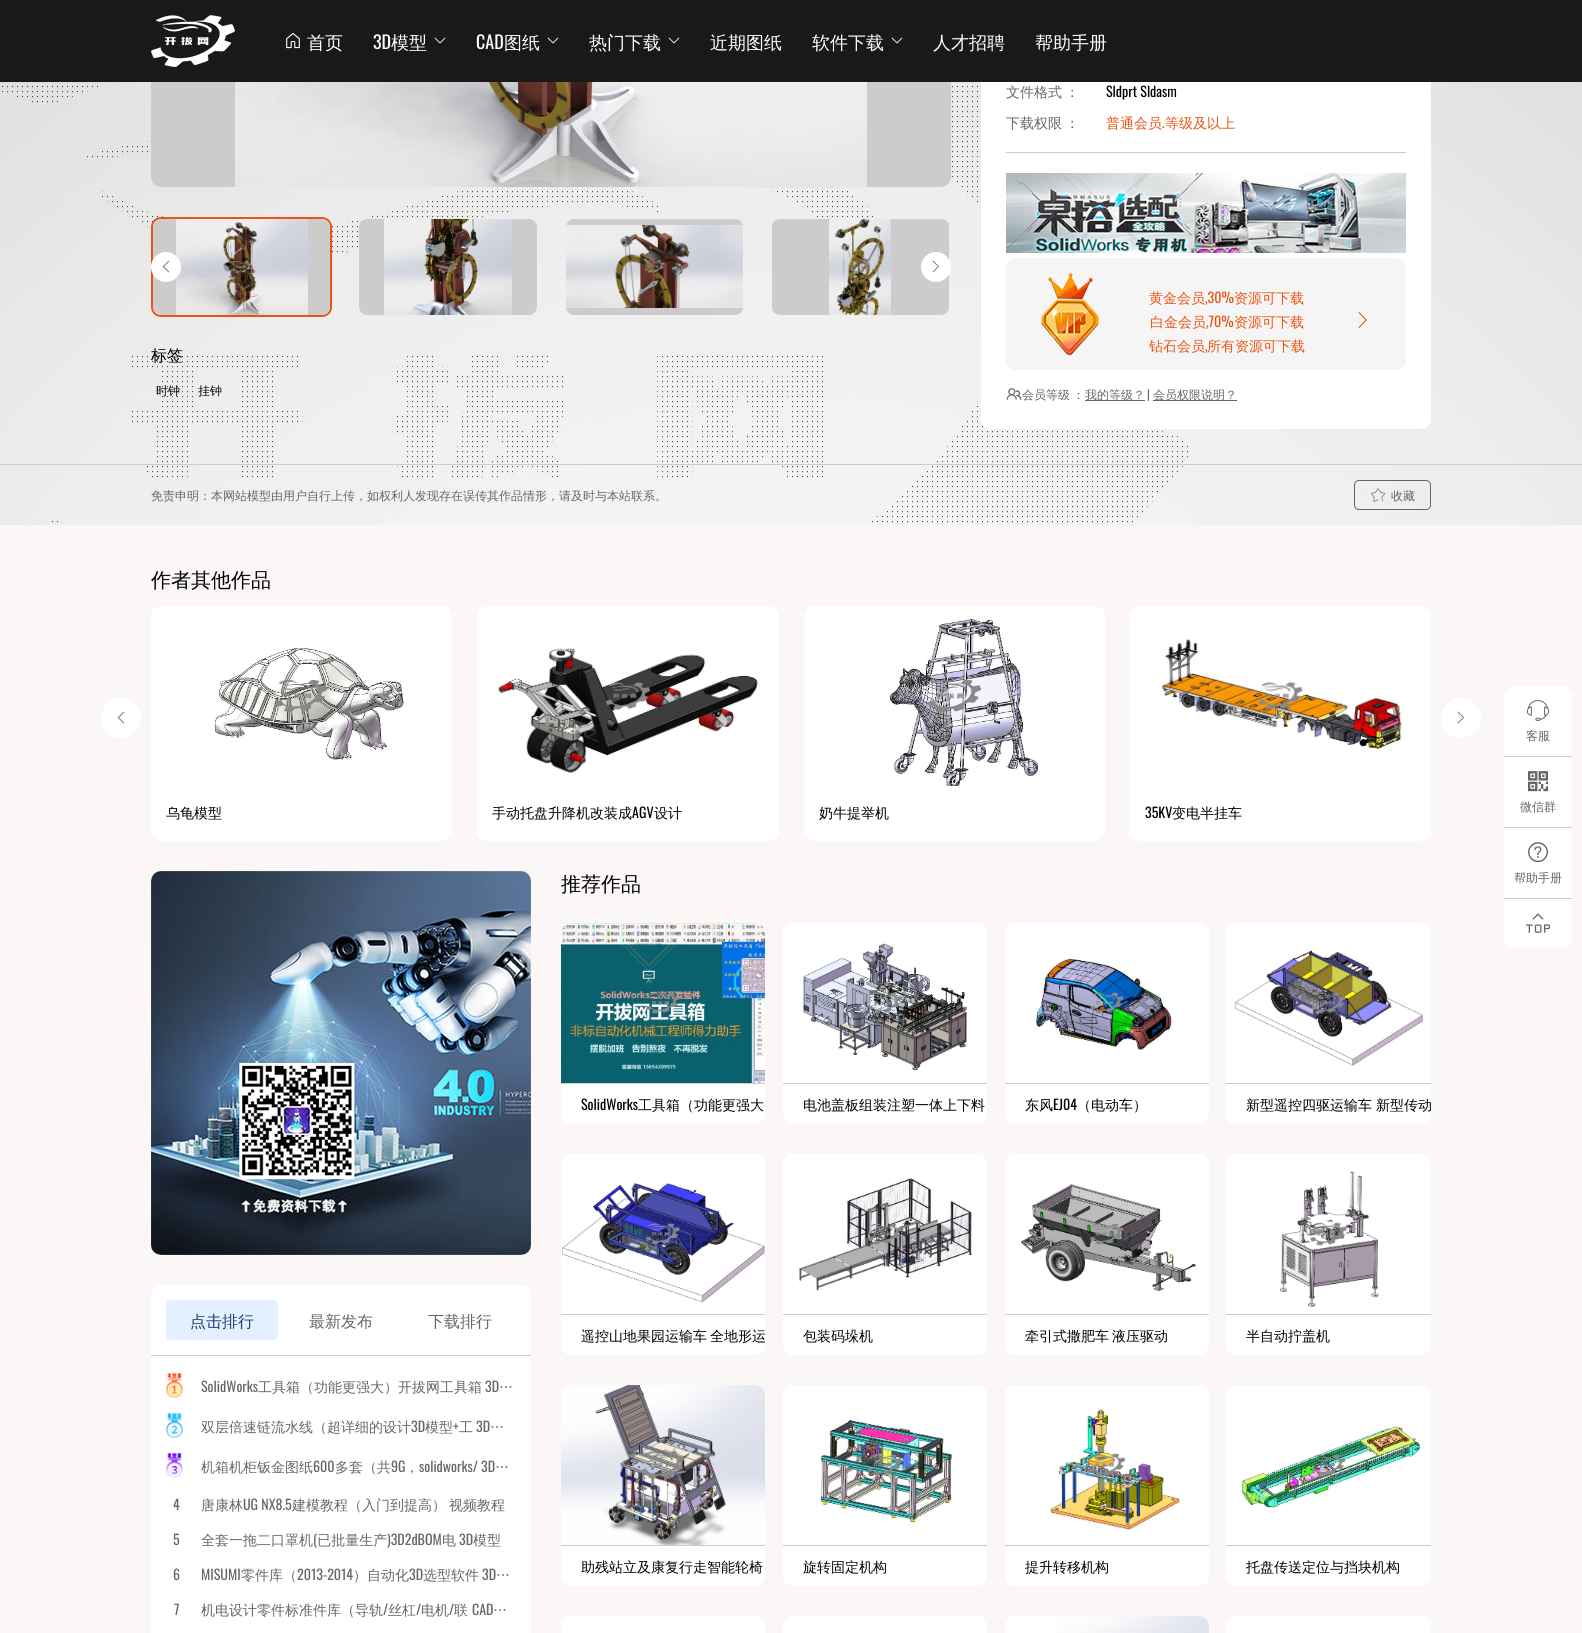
#include <cairo/cairo.h>
#include <math.h>
#include <stddef.h>

typedef struct { double x, y; const char *s; } line_t;
typedef struct { double x, y, w, h; unsigned color; } box_t;
static cairo_t *cr;

static void rgb(unsigned color)
{
	cairo_set_source_rgb(cr, (color >> 16) / 255.0, (color >> 8 & 255) / 255.0, (color & 255) / 255.0);
}

static void tracked(double x, double y, const char *s, double letter, double word)
{
	cairo_move_to(cr, x, y);
	while (*s) {
		char ch[5] = {0};
		int n = 0;
		do ch[n++] = *s++; while ((*s & 0xC0) == 0x80);
		cairo_show_text(cr, ch);
		cairo_rel_move_to(cr, letter + word * (*ch == ' '), 0);
	}
}

static void rrect(double x, double y, double w, double h, double r)
{
	cairo_new_sub_path(cr);
	cairo_arc(cr, x + w - r, y + h - r, r, 0, M_PI / 2);
	cairo_arc(cr, x + r, y + h - r, r, M_PI / 2, M_PI);
	cairo_arc(cr, x + r, y + r, r, M_PI, 1.5 * M_PI);
	cairo_arc(cr, x + w - r, y + r, r, 1.5 * M_PI, 2 * M_PI);
	cairo_close_path(cr);
}

static void image(const char *path, double x, double y, double w, double h)
{
	cairo_surface_t *image = cairo_image_surface_create_from_png(path);
	cairo_save(cr);
	cairo_set_source_surface(cr, image, x, y);
	cairo_rectangle(cr, x, y, w, h);
	cairo_fill(cr);
	cairo_restore(cr);
	cairo_surface_destroy(image);
}

int main(void) {
	cairo_surface_t *surface = cairo_image_surface_create(CAIRO_FORMAT_RGB24, 1582, 1633);
	cr = cairo_create(surface);
	cairo_font_options_t *options = cairo_font_options_create();
	cairo_font_options_set_hint_metrics(options, CAIRO_HINT_METRICS_OFF);
	cairo_font_options_set_hint_style(options, CAIRO_HINT_STYLE_NONE);
	cairo_set_font_options(cr, options);
	cairo_set_miter_limit(cr, 4);
	rgb(0xffffff);
	cairo_paint(cr);
	image("img/8.png", 0, 82, 1582, 443);
	rgb(0xcccccc);
	rrect(151, -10, 800, 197, 10);
	cairo_fill(cr);
	rgb(0xffffff);
	rrect(981, -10, 450, 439, 10);
	cairo_fill(cr);
	rgb(0x191919);
	cairo_rectangle(cr, 0, 0, 1582, 82);
	cairo_fill(cr);
	image("img/1.png", 151, 15, 84, 52);
	image("img/2.png", 286, 33, 14, 16);
	image("img/3.png", 434, 37, 12, 7);
	image("img/3.png", 547, 37, 12, 7);
	image("img/3.png", 668, 37, 12, 7);
	image("img/3.png", 891, 37, 12, 7);
	rgb(0xfbf7f7);
	cairo_rectangle(cr, 0, 525, 1582, 1108);
	cairo_fill(cr);
	rgb(0xffffff);
	rrect(1504, 686, 68, 262, 10);
	cairo_fill(cr);
	rgb(0xcccccc);
	cairo_rectangle(cr, 1504, 756, 68, 1);
	cairo_fill(cr);
	image("img/4.png", 1526, 700, 24, 21);
	cairo_rectangle(cr, 1504, 827, 68, 1);
	cairo_fill(cr);
	image("img/5.png", 1527, 771, 22, 21);
	cairo_rectangle(cr, 1504, 898, 68, 1);
	cairo_fill(cr);
	image("img/6.png", 1528, 842, 20, 21);
	image("img/7.png", 1525, 913, 26, 20);
	image("img/9.png", 235, 82, 632, 105);
	rrect(152, 218, 179, 98, 9);
	rgb(0xea5515);
	cairo_stroke(cr);
	rgb(0xcccccc);
	rrect(153, 219, 177, 96, 8);
	cairo_fill(cr);
	image("img/10.png", 176, 219, 132, 96);
	rrect(359, 219, 178, 96, 8);
	cairo_fill(cr);
	image("img/11.png", 384, 219, 128, 96);
	rrect(566, 219, 177, 96, 8);
	cairo_fill(cr);
	image("img/12.png", 566, 225, 177, 83);
	rrect(772, 219, 177, 96, 8);
	cairo_fill(cr);
	image("img/13.png", 829, 219, 62, 96);
	rgb(0xffffff);
	cairo_arc(cr, 166, 267, 15, 0, 2 * M_PI);
	cairo_fill(cr);
	image("img/14.png", 162, 260, 8, 13);
	cairo_arc(cr, 936, 267, 15, 0, 2 * M_PI);
	cairo_fill(cr);
	image("img/15.png", 932, 260, 7, 13);
	rgb(0xcccccc);
	cairo_rectangle(cr, 1006, 152, 400, 1);
	cairo_fill(cr);
	image("img/16.png", 1006, 173, 400, 80);
	rgb(0xf6f5f5);
	rrect(1006, 258, 400, 112, 10);
	cairo_fill(cr);
	image("img/17.png", 1041, 273, 58, 82);
	image("img/18.png", 1358, 312, 9, 16);
	image("img/19.png", 1006, 388, 16, 12);
	{
		static const box_t items[] = {
			{1085, 400, 60, 1, 0x666666},
			{1153, 400, 84, 1, 0x666666},
			{0, 464, 1582, 1, 0xcccccc},
		};
		for (size_t i = 0; i < sizeof items / sizeof *items; i++) {
			rgb(items[i].color);
			cairo_rectangle(cr, items[i].x, items[i].y, items[i].w, items[i].h);
			cairo_fill(cr);
		}
	}
	rrect(1354.5, 480.5, 76, 29, 4.5);
	rgb(0x666666);
	cairo_set_line_width(cr, 1);
	cairo_stroke(cr);
	image("img/20.png", 1371, 488, 14, 14);
	rgb(0xffffff);
	cairo_arc(cr, 121, 718, 20, 0, 2 * M_PI);
	cairo_fill(cr);
	image("img/14.png", 117, 711, 8, 13);
	cairo_arc(cr, 1461, 718, 20, 0, 2 * M_PI);
	cairo_fill(cr);
	image("img/15.png", 1457, 711, 7, 13);
	image("img/21.png", 151, 606, 301, 180);
	cairo_new_path(cr);
	cairo_move_to(cr, 151, 786);
	cairo_line_to(cr, 452, 786);
	cairo_line_to(cr, 452, 831);
	cairo_curve_to(cr, 452, 836.5, 447.5, 841, 442, 841);
	cairo_line_to(cr, 161, 841);
	cairo_curve_to(cr, 155.5, 841, 151, 836.5, 151, 831);
	cairo_close_path(cr);
	cairo_fill(cr);
	image("img/22.png", 477, 606, 302, 180);
	cairo_new_path(cr);
	cairo_move_to(cr, 477, 786);
	cairo_line_to(cr, 779, 786);
	cairo_line_to(cr, 779, 831);
	cairo_curve_to(cr, 779, 836.5, 774.5, 841, 769, 841);
	cairo_line_to(cr, 487, 841);
	cairo_curve_to(cr, 481.5, 841, 477, 836.5, 477, 831);
	cairo_close_path(cr);
	cairo_fill(cr);
	image("img/23.png", 804, 606, 301, 180);
	cairo_new_path(cr);
	cairo_move_to(cr, 804, 786);
	cairo_line_to(cr, 1105, 786);
	cairo_line_to(cr, 1105, 831);
	cairo_curve_to(cr, 1105, 836.5, 1100.5, 841, 1095, 841);
	cairo_line_to(cr, 814, 841);
	cairo_curve_to(cr, 808.5, 841, 804, 836.5, 804, 831);
	cairo_close_path(cr);
	cairo_fill(cr);
	image("img/24.png", 1130, 606, 301, 180);
	cairo_new_path(cr);
	cairo_move_to(cr, 1130, 786);
	cairo_line_to(cr, 1431, 786);
	cairo_line_to(cr, 1431, 831);
	cairo_curve_to(cr, 1431, 836.5, 1426.5, 841, 1421, 841);
	cairo_line_to(cr, 1140, 841);
	cairo_curve_to(cr, 1134.5, 841, 1130, 836.5, 1130, 831);
	cairo_close_path(cr);
	cairo_fill(cr);
	image("img/25.png", 151, 871, 380, 384);
	rrect(151, 1285, 380, 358, 10);
	cairo_fill(cr);
	rgb(0xcccccc);
	cairo_rectangle(cr, 151, 1355, 380, 1);
	cairo_fill(cr);
	rgb(0xe4efff);
	rrect(166, 1300, 112, 40, 5);
	cairo_fill(cr);
	image("img/26.png", 166, 1373, 17, 25);
	image("img/27.png", 166, 1413, 17, 25);
	image("img/28.png", 166, 1453, 17, 25);
	rgb(0xffffff);
	rrect(561, 923, 204, 201, 10);
	cairo_fill(cr);
	image("img/29.png", 561, 923, 204, 160);
	rgb(0xcccccc);
	cairo_rectangle(cr, 561, 1083, 204, 1);
	cairo_fill(cr);
	rgb(0xffffff);
	rrect(783, 923, 204, 201, 10);
	cairo_fill(cr);
	image("img/30.png", 802, 943, 165, 128);
	rgb(0xcccccc);
	cairo_rectangle(cr, 783, 1083, 204, 1);
	cairo_fill(cr);
	rgb(0xffffff);
	rrect(1005, 923, 204, 201, 10);
	cairo_fill(cr);
	image("img/31.png", 1035, 958, 137, 92);
	rgb(0xcccccc);
	cairo_rectangle(cr, 1005, 1083, 204, 1);
	cairo_fill(cr);
	rgb(0xffffff);
	rrect(1226, 923, 205, 201, 10);
	cairo_fill(cr);
	image("img/32.png", 1234, 950, 189, 116);
	rgb(0xcccccc);
	cairo_rectangle(cr, 1226, 1083, 205, 1);
	cairo_fill(cr);
	rgb(0xffffff);
	rrect(561, 1154, 204, 201, 10);
	cairo_fill(cr);
	image("img/33.png", 562, 1181, 203, 122);
	rgb(0xcccccc);
	cairo_rectangle(cr, 561, 1314, 204, 1);
	cairo_fill(cr);
	rgb(0xffffff);
	rrect(783, 1154, 204, 201, 10);
	cairo_fill(cr);
	image("img/34.png", 799, 1178, 174, 113);
	rgb(0xcccccc);
	cairo_rectangle(cr, 783, 1314, 204, 1);
	cairo_fill(cr);
	rgb(0xffffff);
	rrect(1005, 1154, 204, 201, 10);
	cairo_fill(cr);
	image("img/35.png", 1021, 1184, 175, 107);
	rgb(0xcccccc);
	cairo_rectangle(cr, 1005, 1314, 204, 1);
	cairo_fill(cr);
	rgb(0xffffff);
	rrect(1226, 1154, 205, 201, 10);
	cairo_fill(cr);
	image("img/36.png", 1280, 1171, 99, 136);
	rgb(0xcccccc);
	cairo_rectangle(cr, 1226, 1314, 205, 1);
	cairo_fill(cr);
	rgb(0xffffff);
	rrect(561, 1385, 204, 201, 10);
	cairo_fill(cr);
	image("img/37.png", 561, 1385, 204, 160);
	rgb(0xcccccc);
	cairo_rectangle(cr, 561, 1545, 204, 1);
	cairo_fill(cr);
	rgb(0xffffff);
	rrect(783, 1385, 204, 201, 10);
	cairo_fill(cr);
	image("img/38.png", 819, 1420, 133, 103);
	rgb(0xcccccc);
	cairo_rectangle(cr, 783, 1545, 204, 1);
	cairo_fill(cr);
	rgb(0xffffff);
	rrect(1005, 1385, 204, 201, 10);
	cairo_fill(cr);
	image("img/39.png", 1050, 1409, 131, 121);
	rgb(0xcccccc);
	cairo_rectangle(cr, 1005, 1545, 204, 1);
	cairo_fill(cr);
	rgb(0xffffff);
	rrect(1226, 1385, 205, 201, 10);
	cairo_fill(cr);
	image("img/40.png", 1241, 1426, 180, 82);
	rgb(0xcccccc);
	cairo_rectangle(cr, 1226, 1545, 205, 1);
	cairo_fill(cr);
	rgb(0xffffff);
	rrect(561, 1616, 204, 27, 10);
	cairo_fill(cr);
	rrect(783, 1616, 204, 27, 10);
	cairo_fill(cr);
	rrect(1005, 1616, 204, 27, 10);
	cairo_fill(cr);
	image("img/41.png", 1057, 1616, 152, 17);
	rrect(1226, 1616, 205, 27, 10);
	cairo_fill(cr);
	cairo_select_font_face(cr, "WenQuanYi Zen Hei Medium", CAIRO_FONT_SLANT_NORMAL, CAIRO_FONT_WEIGHT_NORMAL);
	cairo_set_font_size(cr, 18);
	cairo_move_to(cr, 307, 49);
	cairo_show_text(cr, "首页");
	cairo_select_font_face(cr, "Oswald", CAIRO_FONT_SLANT_NORMAL, CAIRO_FONT_WEIGHT_NORMAL);
	cairo_move_to(cr, 373, 49);
	cairo_show_text(cr, "3D");
	cairo_select_font_face(cr, "WenQuanYi Zen Hei Medium", CAIRO_FONT_SLANT_NORMAL, CAIRO_FONT_WEIGHT_NORMAL);
	cairo_move_to(cr, 391, 49);
	cairo_show_text(cr, "模型");
	cairo_select_font_face(cr, "Oswald", CAIRO_FONT_SLANT_NORMAL, CAIRO_FONT_WEIGHT_NORMAL);
	cairo_move_to(cr, 476, 49);
	cairo_show_text(cr, "CAD");
	cairo_select_font_face(cr, "WenQuanYi Zen Hei Medium", CAIRO_FONT_SLANT_NORMAL, CAIRO_FONT_WEIGHT_NORMAL);
	{
		static const line_t items[] = {
			{504, 49, "图纸"},
			{589, 49, "热门下载"},
			{710, 49, "近期图纸"},
			{812, 49, "软件下载"},
			{933, 49, "人才招聘"},
			{1035, 49, "帮助手册"},
		};
		for (size_t i = 0; i < sizeof items / sizeof *items; i++) {
			cairo_move_to(cr, items[i].x, items[i].y);
			cairo_show_text(cr, items[i].s);
		}
	}
	cairo_set_font_size(cr, 12);
	rgb(0x666666);
	{
		static const line_t items[] = {
			{1526, 740, "客服"},
			{1520, 811, "微信群"},
			{1514, 882, "帮助手册"},
		};
		for (size_t i = 0; i < sizeof items / sizeof *items; i++) {
			cairo_move_to(cr, items[i].x, items[i].y);
			cairo_show_text(cr, items[i].s);
		}
	}
	cairo_set_font_size(cr, 16);
	rgb(0x000000);
	cairo_move_to(cr, 151, 361);
	cairo_show_text(cr, "标签");
	cairo_set_font_size(cr, 12);
	cairo_move_to(cr, 156, 395);
	cairo_show_text(cr, "时钟");
	cairo_move_to(cr, 198, 395);
	cairo_show_text(cr, "挂钟");
	cairo_set_font_size(cr, 14);
	rgb(0x666666);
	tracked(1006, 97, "文件格式 ：", 0, -1);
	cairo_select_font_face(cr, "Oswald", CAIRO_FONT_SLANT_NORMAL, CAIRO_FONT_WEIGHT_NORMAL);
	rgb(0x000000);
	cairo_move_to(cr, 1106, 97);
	cairo_show_text(cr, "Sldprt Sldasm");
	cairo_select_font_face(cr, "WenQuanYi Zen Hei Medium", CAIRO_FONT_SLANT_NORMAL, CAIRO_FONT_WEIGHT_NORMAL);
	rgb(0x666666);
	tracked(1006, 128, "下载权限 ：", 0, -1);
	rgb(0xea5514);
	cairo_move_to(cr, 1106, 128);
	cairo_show_text(cr, "普通会员");
	cairo_select_font_face(cr, "Oswald", CAIRO_FONT_SLANT_NORMAL, CAIRO_FONT_WEIGHT_NORMAL);
	cairo_move_to(cr, 1162, 128);
	cairo_show_text(cr, ".");
	cairo_select_font_face(cr, "WenQuanYi Zen Hei Medium", CAIRO_FONT_SLANT_NORMAL, CAIRO_FONT_WEIGHT_NORMAL);
	cairo_move_to(cr, 1165, 128);
	cairo_show_text(cr, "等级及以上");
	cairo_move_to(cr, 1149, 303);
	cairo_show_text(cr, "黄金会员");
	cairo_select_font_face(cr, "Oswald", CAIRO_FONT_SLANT_NORMAL, CAIRO_FONT_WEIGHT_NORMAL);
	cairo_move_to(cr, 1205, 303);
	cairo_show_text(cr, ",30%");
	cairo_select_font_face(cr, "WenQuanYi Zen Hei Medium", CAIRO_FONT_SLANT_NORMAL, CAIRO_FONT_WEIGHT_NORMAL);
	cairo_move_to(cr, 1234, 303);
	cairo_show_text(cr, "资源可下载");
	cairo_move_to(cr, 1150, 327);
	cairo_show_text(cr, "白金会员");
	cairo_select_font_face(cr, "Oswald", CAIRO_FONT_SLANT_NORMAL, CAIRO_FONT_WEIGHT_NORMAL);
	cairo_move_to(cr, 1206, 327);
	cairo_show_text(cr, ",70%");
	cairo_select_font_face(cr, "WenQuanYi Zen Hei Medium", CAIRO_FONT_SLANT_NORMAL, CAIRO_FONT_WEIGHT_NORMAL);
	cairo_move_to(cr, 1234, 327);
	cairo_show_text(cr, "资源可下载");
	cairo_move_to(cr, 1149, 351);
	cairo_show_text(cr, "钻石会员");
	cairo_select_font_face(cr, "Oswald", CAIRO_FONT_SLANT_NORMAL, CAIRO_FONT_WEIGHT_NORMAL);
	cairo_move_to(cr, 1205, 351);
	cairo_show_text(cr, ",");
	cairo_select_font_face(cr, "WenQuanYi Zen Hei Medium", CAIRO_FONT_SLANT_NORMAL, CAIRO_FONT_WEIGHT_NORMAL);
	cairo_move_to(cr, 1207, 351);
	cairo_show_text(cr, "所有资源可下载");
	cairo_set_font_size(cr, 12);
	rgb(0x666666);
	tracked(1022, 399, "会员等级 ：", 0, -1);
	cairo_move_to(cr, 1085, 399);
	cairo_show_text(cr, "我的等级？");
	cairo_select_font_face(cr, "Oswald", CAIRO_FONT_SLANT_NORMAL, CAIRO_FONT_WEIGHT_NORMAL);
	cairo_move_to(cr, 1147, 399);
	cairo_show_text(cr, "|");
	cairo_select_font_face(cr, "WenQuanYi Zen Hei Medium", CAIRO_FONT_SLANT_NORMAL, CAIRO_FONT_WEIGHT_NORMAL);
	{
		static const line_t items[] = {
			{1153, 399, "会员权限说明？"},
			{151, 500, "免责申明：本网站模型由用户自行上传，如权利人发现存在误传其作品情形，请及时与本站联系。"},
			{1391, 500, "收藏"},
		};
		for (size_t i = 0; i < sizeof items / sizeof *items; i++) {
			cairo_move_to(cr, items[i].x, items[i].y);
			cairo_show_text(cr, items[i].s);
		}
	}
	cairo_set_font_size(cr, 20);
	rgb(0x000000);
	cairo_move_to(cr, 151, 587);
	cairo_show_text(cr, "作者其他作品");
	cairo_set_font_size(cr, 14);
	cairo_move_to(cr, 166, 818);
	cairo_show_text(cr, "乌龟模型");
	cairo_move_to(cr, 492, 818);
	cairo_show_text(cr, "手动托盘升降机改装成");
	cairo_select_font_face(cr, "Oswald", CAIRO_FONT_SLANT_NORMAL, CAIRO_FONT_WEIGHT_NORMAL);
	cairo_move_to(cr, 632, 818);
	cairo_show_text(cr, "AGV");
	cairo_select_font_face(cr, "WenQuanYi Zen Hei Medium", CAIRO_FONT_SLANT_NORMAL, CAIRO_FONT_WEIGHT_NORMAL);
	cairo_move_to(cr, 654, 818);
	cairo_show_text(cr, "设计");
	cairo_move_to(cr, 819, 818);
	cairo_show_text(cr, "奶牛提举机");
	cairo_select_font_face(cr, "Oswald", CAIRO_FONT_SLANT_NORMAL, CAIRO_FONT_WEIGHT_NORMAL);
	cairo_move_to(cr, 1145, 818);
	cairo_show_text(cr, "35KV");
	cairo_select_font_face(cr, "WenQuanYi Zen Hei Medium", CAIRO_FONT_SLANT_NORMAL, CAIRO_FONT_WEIGHT_NORMAL);
	cairo_move_to(cr, 1172, 818);
	cairo_show_text(cr, "变电半挂车");
	cairo_set_font_size(cr, 16);
	rgb(0x1d3e70);
	cairo_move_to(cr, 190, 1327);
	cairo_show_text(cr, "点击排行");
	rgb(0x666666);
	cairo_move_to(cr, 309, 1327);
	cairo_show_text(cr, "最新发布");
	cairo_move_to(cr, 428, 1327);
	cairo_show_text(cr, "下载排行");
	cairo_select_font_face(cr, "Oswald", CAIRO_FONT_SLANT_NORMAL, CAIRO_FONT_WEIGHT_NORMAL);
	cairo_set_font_size(cr, 14);
	cairo_move_to(cr, 201, 1392);
	cairo_show_text(cr, "SolidWorks");
	cairo_select_font_face(cr, "WenQuanYi Zen Hei Medium", CAIRO_FONT_SLANT_NORMAL, CAIRO_FONT_WEIGHT_NORMAL);
	cairo_move_to(cr, 258, 1392);
	cairo_show_text(cr, "工具箱（功能更强大）开拔网工具箱");
	cairo_select_font_face(cr, "Oswald", CAIRO_FONT_SLANT_NORMAL, CAIRO_FONT_WEIGHT_NORMAL);
	cairo_move_to(cr, 485, 1392);
	cairo_show_text(cr, "3D");
	cairo_select_font_face(cr, "WenQuanYi Zen Hei Medium", CAIRO_FONT_SLANT_NORMAL, CAIRO_FONT_WEIGHT_NORMAL);
	cairo_move_to(cr, 499, 1392);
	cairo_show_text(cr, "…");
	cairo_move_to(cr, 201, 1432);
	cairo_show_text(cr, "双层倍速链流水线（超详细的设计");
	cairo_select_font_face(cr, "Oswald", CAIRO_FONT_SLANT_NORMAL, CAIRO_FONT_WEIGHT_NORMAL);
	cairo_move_to(cr, 411, 1432);
	cairo_show_text(cr, "3D");
	cairo_select_font_face(cr, "WenQuanYi Zen Hei Medium", CAIRO_FONT_SLANT_NORMAL, CAIRO_FONT_WEIGHT_NORMAL);
	cairo_move_to(cr, 425, 1432);
	cairo_show_text(cr, "模型");
	cairo_select_font_face(cr, "Oswald", CAIRO_FONT_SLANT_NORMAL, CAIRO_FONT_WEIGHT_NORMAL);
	cairo_move_to(cr, 453, 1432);
	cairo_show_text(cr, "+");
	cairo_select_font_face(cr, "WenQuanYi Zen Hei Medium", CAIRO_FONT_SLANT_NORMAL, CAIRO_FONT_WEIGHT_NORMAL);
	cairo_move_to(cr, 459, 1432);
	cairo_show_text(cr, "工");
	cairo_select_font_face(cr, "Oswald", CAIRO_FONT_SLANT_NORMAL, CAIRO_FONT_WEIGHT_NORMAL);
	cairo_move_to(cr, 476, 1432);
	cairo_show_text(cr, "3D");
	cairo_select_font_face(cr, "WenQuanYi Zen Hei Medium", CAIRO_FONT_SLANT_NORMAL, CAIRO_FONT_WEIGHT_NORMAL);
	cairo_move_to(cr, 490, 1432);
	cairo_show_text(cr, "…");
	cairo_move_to(cr, 201, 1472);
	cairo_show_text(cr, "机箱机柜钣金图纸");
	cairo_select_font_face(cr, "Oswald", CAIRO_FONT_SLANT_NORMAL, CAIRO_FONT_WEIGHT_NORMAL);
	cairo_move_to(cr, 313, 1472);
	cairo_show_text(cr, "600");
	cairo_select_font_face(cr, "WenQuanYi Zen Hei Medium", CAIRO_FONT_SLANT_NORMAL, CAIRO_FONT_WEIGHT_NORMAL);
	cairo_move_to(cr, 335, 1472);
	cairo_show_text(cr, "多套（共");
	cairo_select_font_face(cr, "Oswald", CAIRO_FONT_SLANT_NORMAL, CAIRO_FONT_WEIGHT_NORMAL);
	cairo_move_to(cr, 391, 1472);
	cairo_show_text(cr, "9G");
	cairo_move_to(cr, 419, 1472);
	cairo_show_text(cr, "solidworks/ 3D");
	cairo_select_font_face(cr, "WenQuanYi Zen Hei Medium", CAIRO_FONT_SLANT_NORMAL, CAIRO_FONT_WEIGHT_NORMAL);
	cairo_move_to(cr, 495, 1472);
	cairo_show_text(cr, "…");
	cairo_move_to(cr, 405, 1472);
	cairo_show_text(cr, "，");
	cairo_select_font_face(cr, "Oswald", CAIRO_FONT_SLANT_NORMAL, CAIRO_FONT_WEIGHT_NORMAL);
	cairo_move_to(cr, 173, 1510);
	cairo_show_text(cr, "4");
	cairo_select_font_face(cr, "WenQuanYi Zen Hei Medium", CAIRO_FONT_SLANT_NORMAL, CAIRO_FONT_WEIGHT_NORMAL);
	cairo_move_to(cr, 201, 1510);
	cairo_show_text(cr, "唐康林");
	cairo_select_font_face(cr, "Oswald", CAIRO_FONT_SLANT_NORMAL, CAIRO_FONT_WEIGHT_NORMAL);
	cairo_move_to(cr, 243, 1510);
	cairo_show_text(cr, "UG NX8.5");
	cairo_select_font_face(cr, "WenQuanYi Zen Hei Medium", CAIRO_FONT_SLANT_NORMAL, CAIRO_FONT_WEIGHT_NORMAL);
	cairo_move_to(cr, 292, 1510);
	cairo_show_text(cr, "建模教程（入门到提高）");
	cairo_move_to(cr, 449, 1510);
	cairo_show_text(cr, "视频教程");
	cairo_select_font_face(cr, "Oswald", CAIRO_FONT_SLANT_NORMAL, CAIRO_FONT_WEIGHT_NORMAL);
	cairo_move_to(cr, 173, 1545);
	cairo_show_text(cr, "5");
	cairo_select_font_face(cr, "WenQuanYi Zen Hei Medium", CAIRO_FONT_SLANT_NORMAL, CAIRO_FONT_WEIGHT_NORMAL);
	cairo_move_to(cr, 201, 1545);
	cairo_show_text(cr, "全套一拖二口罩机 已批量生产");
	cairo_select_font_face(cr, "Oswald", CAIRO_FONT_SLANT_NORMAL, CAIRO_FONT_WEIGHT_NORMAL);
	cairo_move_to(cr, 313, 1545);
	cairo_show_text(cr, "(");
	cairo_move_to(cr, 387, 1545);
	cairo_show_text(cr, ")3D2dBOM");
	cairo_select_font_face(cr, "WenQuanYi Zen Hei Medium", CAIRO_FONT_SLANT_NORMAL, CAIRO_FONT_WEIGHT_NORMAL);
	cairo_move_to(cr, 442, 1545);
	cairo_show_text(cr, "电");
	cairo_select_font_face(cr, "Oswald", CAIRO_FONT_SLANT_NORMAL, CAIRO_FONT_WEIGHT_NORMAL);
	cairo_move_to(cr, 459, 1545);
	cairo_show_text(cr, "3D");
	cairo_select_font_face(cr, "WenQuanYi Zen Hei Medium", CAIRO_FONT_SLANT_NORMAL, CAIRO_FONT_WEIGHT_NORMAL);
	cairo_move_to(cr, 473, 1545);
	cairo_show_text(cr, "模型");
	cairo_select_font_face(cr, "Oswald", CAIRO_FONT_SLANT_NORMAL, CAIRO_FONT_WEIGHT_NORMAL);
	cairo_move_to(cr, 173, 1580);
	cairo_show_text(cr, "6");
	cairo_move_to(cr, 201, 1580);
	cairo_show_text(cr, "MISUMI");
	cairo_select_font_face(cr, "WenQuanYi Zen Hei Medium", CAIRO_FONT_SLANT_NORMAL, CAIRO_FONT_WEIGHT_NORMAL);
	cairo_move_to(cr, 241, 1580);
	cairo_show_text(cr, "零件库（");
	cairo_select_font_face(cr, "Oswald", CAIRO_FONT_SLANT_NORMAL, CAIRO_FONT_WEIGHT_NORMAL);
	cairo_move_to(cr, 297, 1580);
	cairo_show_text(cr, "2013-2014");
	cairo_select_font_face(cr, "WenQuanYi Zen Hei Medium", CAIRO_FONT_SLANT_NORMAL, CAIRO_FONT_WEIGHT_NORMAL);
	cairo_move_to(cr, 353, 1580);
	cairo_show_text(cr, "）自动化");
	cairo_select_font_face(cr, "Oswald", CAIRO_FONT_SLANT_NORMAL, CAIRO_FONT_WEIGHT_NORMAL);
	cairo_move_to(cr, 409, 1580);
	cairo_show_text(cr, "3D");
	cairo_select_font_face(cr, "WenQuanYi Zen Hei Medium", CAIRO_FONT_SLANT_NORMAL, CAIRO_FONT_WEIGHT_NORMAL);
	cairo_move_to(cr, 423, 1580);
	cairo_show_text(cr, "选型软件");
	cairo_select_font_face(cr, "Oswald", CAIRO_FONT_SLANT_NORMAL, CAIRO_FONT_WEIGHT_NORMAL);
	cairo_move_to(cr, 482, 1580);
	cairo_show_text(cr, "3D");
	cairo_select_font_face(cr, "WenQuanYi Zen Hei Medium", CAIRO_FONT_SLANT_NORMAL, CAIRO_FONT_WEIGHT_NORMAL);
	cairo_move_to(cr, 496, 1580);
	cairo_show_text(cr, "…");
	cairo_select_font_face(cr, "Oswald", CAIRO_FONT_SLANT_NORMAL, CAIRO_FONT_WEIGHT_NORMAL);
	cairo_move_to(cr, 174, 1615);
	cairo_show_text(cr, "7");
	cairo_select_font_face(cr, "WenQuanYi Zen Hei Medium", CAIRO_FONT_SLANT_NORMAL, CAIRO_FONT_WEIGHT_NORMAL);
	cairo_move_to(cr, 201, 1615);
	cairo_show_text(cr, "机电设计零件标准件库（导轨");
	cairo_select_font_face(cr, "Oswald", CAIRO_FONT_SLANT_NORMAL, CAIRO_FONT_WEIGHT_NORMAL);
	cairo_move_to(cr, 383, 1615);
	cairo_show_text(cr, "/");
	cairo_select_font_face(cr, "WenQuanYi Zen Hei Medium", CAIRO_FONT_SLANT_NORMAL, CAIRO_FONT_WEIGHT_NORMAL);
	cairo_move_to(cr, 388, 1615);
	cairo_show_text(cr, "丝杠");
	cairo_select_font_face(cr, "Oswald", CAIRO_FONT_SLANT_NORMAL, CAIRO_FONT_WEIGHT_NORMAL);
	cairo_move_to(cr, 416, 1615);
	cairo_show_text(cr, "/");
	cairo_select_font_face(cr, "WenQuanYi Zen Hei Medium", CAIRO_FONT_SLANT_NORMAL, CAIRO_FONT_WEIGHT_NORMAL);
	cairo_move_to(cr, 421, 1615);
	cairo_show_text(cr, "电机");
	cairo_select_font_face(cr, "Oswald", CAIRO_FONT_SLANT_NORMAL, CAIRO_FONT_WEIGHT_NORMAL);
	cairo_move_to(cr, 449, 1615);
	cairo_show_text(cr, "/");
	cairo_select_font_face(cr, "WenQuanYi Zen Hei Medium", CAIRO_FONT_SLANT_NORMAL, CAIRO_FONT_WEIGHT_NORMAL);
	cairo_move_to(cr, 454, 1615);
	cairo_show_text(cr, "联");
	cairo_select_font_face(cr, "Oswald", CAIRO_FONT_SLANT_NORMAL, CAIRO_FONT_WEIGHT_NORMAL);
	cairo_move_to(cr, 472, 1615);
	cairo_show_text(cr, "CAD");
	cairo_select_font_face(cr, "WenQuanYi Zen Hei Medium", CAIRO_FONT_SLANT_NORMAL, CAIRO_FONT_WEIGHT_NORMAL);
	cairo_move_to(cr, 493, 1615);
	cairo_show_text(cr, "…");
	cairo_set_font_size(cr, 20);
	rgb(0x000000);
	cairo_move_to(cr, 561, 891);
	cairo_show_text(cr, "推荐作品");
	cairo_select_font_face(cr, "Oswald", CAIRO_FONT_SLANT_NORMAL, CAIRO_FONT_WEIGHT_NORMAL);
	cairo_set_font_size(cr, 14);
	cairo_move_to(cr, 581, 1110);
	cairo_show_text(cr, "SolidWorks");
	cairo_select_font_face(cr, "WenQuanYi Zen Hei Medium", CAIRO_FONT_SLANT_NORMAL, CAIRO_FONT_WEIGHT_NORMAL);
	{
		static const line_t items[] = {
			{638, 1110, "工具箱（功能更强大"},
			{803, 1110, "电池盖板组装注塑一体上下料"},
			{1025, 1110, "东风"},
		};
		for (size_t i = 0; i < sizeof items / sizeof *items; i++) {
			cairo_move_to(cr, items[i].x, items[i].y);
			cairo_show_text(cr, items[i].s);
		}
	}
	cairo_select_font_face(cr, "Oswald", CAIRO_FONT_SLANT_NORMAL, CAIRO_FONT_WEIGHT_NORMAL);
	cairo_move_to(cr, 1053, 1110);
	cairo_show_text(cr, "EJ04");
	cairo_select_font_face(cr, "WenQuanYi Zen Hei Medium", CAIRO_FONT_SLANT_NORMAL, CAIRO_FONT_WEIGHT_NORMAL);
	{
		static const line_t items[] = {
			{1077, 1110, "（电动车）"},
			{1246, 1110, "新型遥控四驱运输车"},
			{1376, 1110, "新型传动"},
			{581, 1341, "遥控山地果园运输车"},
		};
		for (size_t i = 0; i < sizeof items / sizeof *items; i++) {
			cairo_move_to(cr, items[i].x, items[i].y);
			cairo_show_text(cr, items[i].s);
		}
	}
	cairo_save(cr);
	rrect(561, 1154, 204, 201, 10);
	cairo_clip(cr);
	cairo_move_to(cr, 710, 1341);
	cairo_show_text(cr, "全地形运");
	cairo_restore(cr);
	{
		static const line_t items[] = {
			{803, 1341, "包装码垛机"},
			{1025, 1341, "牵引式撒肥车"},
			{1112, 1341, "液压驱动"},
			{1246, 1341, "半自动拧盖机"},
			{581, 1572, "助残站立及康复行走智能轮椅"},
			{803, 1572, "旋转固定机构"},
			{1025, 1572, "提升转移机构"},
			{1246, 1572, "托盘传送定位与挡块机构"},
		};
		for (size_t i = 0; i < sizeof items / sizeof *items; i++) {
			cairo_move_to(cr, items[i].x, items[i].y);
			cairo_show_text(cr, items[i].s);
		}
	}
	cairo_surface_write_to_png(surface, "page.png");
	cairo_font_options_destroy(options);
	cairo_destroy(cr);
	cairo_surface_destroy(surface);
	return 0;
}
